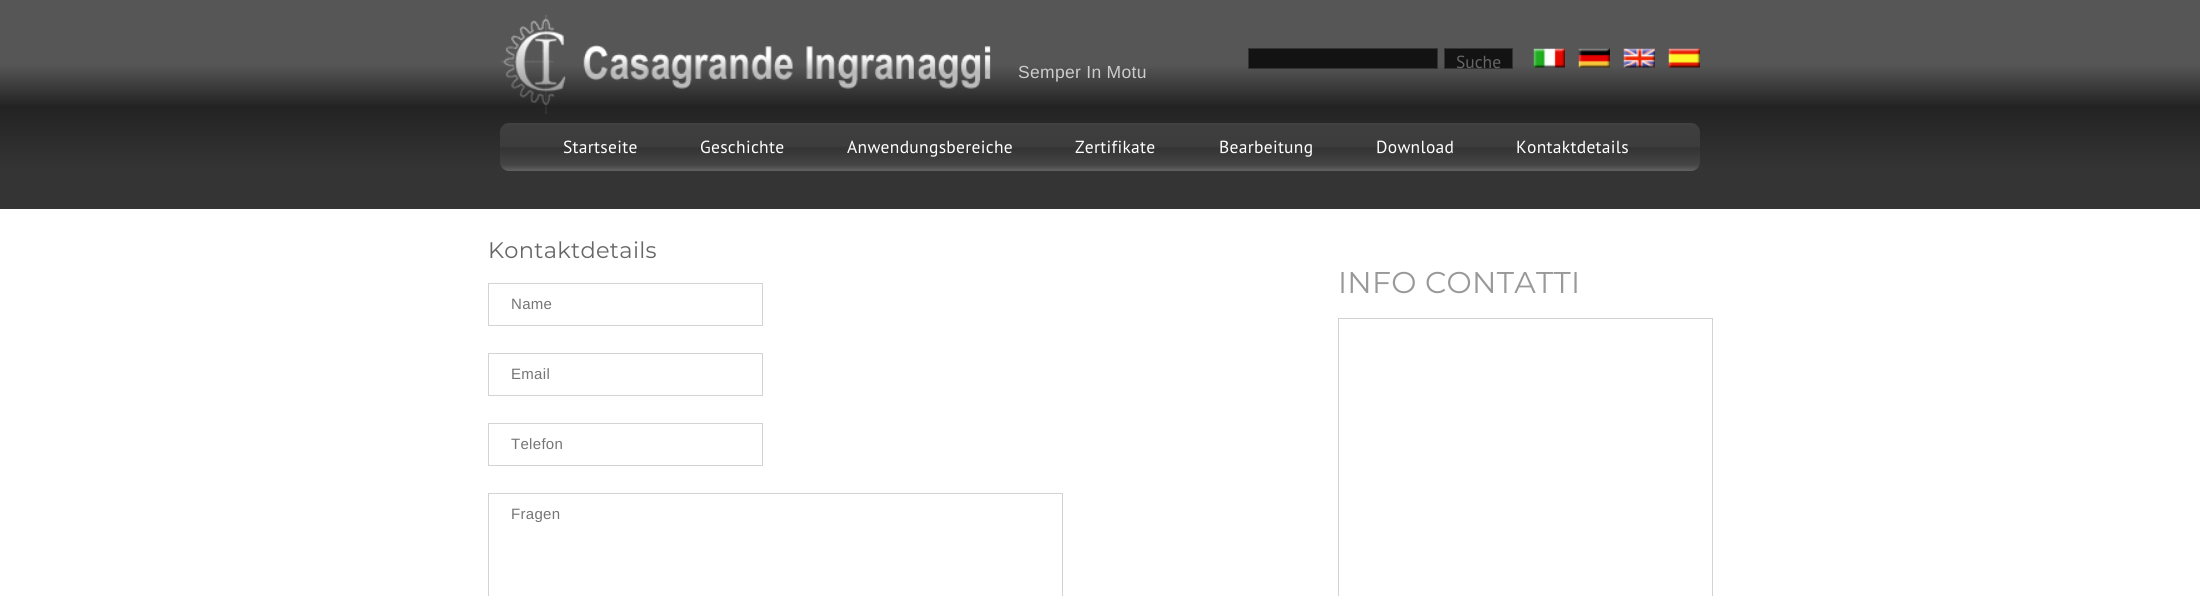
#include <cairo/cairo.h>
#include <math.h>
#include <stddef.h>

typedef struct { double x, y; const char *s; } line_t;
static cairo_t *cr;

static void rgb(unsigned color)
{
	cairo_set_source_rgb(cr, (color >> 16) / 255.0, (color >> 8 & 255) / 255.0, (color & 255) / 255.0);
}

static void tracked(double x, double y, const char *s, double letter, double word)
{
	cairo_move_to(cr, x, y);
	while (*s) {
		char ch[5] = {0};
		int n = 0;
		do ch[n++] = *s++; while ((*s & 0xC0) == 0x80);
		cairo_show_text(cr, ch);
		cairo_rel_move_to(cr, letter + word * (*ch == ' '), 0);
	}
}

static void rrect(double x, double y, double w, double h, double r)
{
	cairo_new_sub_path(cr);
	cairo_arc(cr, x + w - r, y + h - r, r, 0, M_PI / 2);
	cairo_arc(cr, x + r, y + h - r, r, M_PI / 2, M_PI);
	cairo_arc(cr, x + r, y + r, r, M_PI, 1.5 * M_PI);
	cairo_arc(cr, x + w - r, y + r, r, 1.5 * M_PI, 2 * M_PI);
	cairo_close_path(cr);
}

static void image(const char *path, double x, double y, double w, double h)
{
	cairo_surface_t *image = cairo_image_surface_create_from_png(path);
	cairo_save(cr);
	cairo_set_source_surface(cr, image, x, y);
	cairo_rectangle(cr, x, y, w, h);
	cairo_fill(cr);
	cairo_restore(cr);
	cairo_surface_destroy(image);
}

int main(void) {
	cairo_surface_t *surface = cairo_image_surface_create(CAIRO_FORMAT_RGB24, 2200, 596);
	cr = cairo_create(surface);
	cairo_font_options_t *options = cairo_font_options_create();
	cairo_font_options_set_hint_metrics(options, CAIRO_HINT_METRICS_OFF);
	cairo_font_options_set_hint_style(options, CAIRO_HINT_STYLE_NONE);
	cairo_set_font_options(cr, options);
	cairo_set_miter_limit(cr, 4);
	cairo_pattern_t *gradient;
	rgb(0xffffff);
	cairo_paint(cr);
	gradient = cairo_pattern_create_linear(1100, 0, 1100, 209);
	cairo_pattern_add_color_stop_rgba(gradient, 0, 0.337, 0.337, 0.337, 1);
	cairo_pattern_add_color_stop_rgba(gradient, 0.31, 0.337, 0.337, 0.337, 1);
	cairo_pattern_add_color_stop_rgba(gradient, 0.51, 0.137, 0.137, 0.137, 1);
	cairo_pattern_add_color_stop_rgba(gradient, 0.81, 0.204, 0.204, 0.204, 1);
	cairo_pattern_add_color_stop_rgba(gradient, 1, 0.204, 0.204, 0.204, 1);
	cairo_set_source(cr, gradient);
	cairo_pattern_destroy(gradient);
	cairo_rectangle(cr, 0, 0, 2200, 209);
	cairo_fill(cr);
	rgb(0x131313);
	cairo_rectangle(cr, 1248.5, 48.5, 189, 20);
	cairo_fill_preserve(cr);
	rgb(0x333333);
	cairo_set_line_width(cr, 1);
	cairo_stroke(cr);
	rgb(0x131313);
	cairo_rectangle(cr, 1444.5, 48.5, 68, 20);
	cairo_fill_preserve(cr);
	rgb(0x333333);
	cairo_stroke(cr);
	image("img/1.png", 1533, 48, 32, 20);
	image("img/2.png", 1578, 48, 32, 20);
	image("img/3.png", 1623, 48, 32, 20);
	image("img/4.png", 1668, 48, 32, 20);
	image("img/5.png", 500, 15, 491, 99);
	gradient = cairo_pattern_create_linear(1100, 122, 1100, 171);
	cairo_pattern_add_color_stop_rgba(gradient, 0, 0.271, 0.271, 0.271, 1);
	cairo_pattern_add_color_stop_rgba(gradient, 0.08, 0.243, 0.243, 0.243, 1);
	cairo_pattern_add_color_stop_rgba(gradient, 0.48, 0.239, 0.239, 0.239, 1);
	cairo_pattern_add_color_stop_rgba(gradient, 0.54, 0.204, 0.204, 0.204, 1);
	cairo_pattern_add_color_stop_rgba(gradient, 0.88, 0.271, 0.271, 0.271, 1);
	cairo_pattern_add_color_stop_rgba(gradient, 1, 0.384, 0.384, 0.384, 1);
	cairo_set_source(cr, gradient);
	cairo_pattern_destroy(gradient);
	rrect(500, 123, 1200, 48, 9);
	cairo_fill(cr);
	cairo_rectangle(cr, 488.5, 283.5, 274, 42);
	rgb(0xd3d3d3);
	cairo_stroke(cr);
	cairo_rectangle(cr, 488.5, 353.5, 274, 42);
	cairo_stroke(cr);
	cairo_rectangle(cr, 488.5, 423.5, 274, 42);
	cairo_stroke(cr);
	cairo_rectangle(cr, 488.5, 493.5, 574, 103);
	cairo_stroke(cr);
	cairo_rectangle(cr, 1338.5, 318.5, 374, 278);
	cairo_stroke(cr);
	cairo_select_font_face(cr, "PT Sans", CAIRO_FONT_SLANT_NORMAL, CAIRO_FONT_WEIGHT_NORMAL);
	cairo_set_font_size(cr, 17.5);
	rgb(0x666666);
	cairo_move_to(cr, 1456, 68);
	cairo_show_text(cr, "Suche");
	cairo_select_font_face(cr, "Liberation Sans", CAIRO_FONT_SLANT_NORMAL, CAIRO_FONT_WEIGHT_NORMAL);
	rgb(0xcccccc);
	tracked(1018, 78, "Semper In Motu", 0.3, 0);
	cairo_select_font_face(cr, "PT Sans", CAIRO_FONT_SLANT_NORMAL, CAIRO_FONT_WEIGHT_NORMAL);
	rgb(0xffffff);
	{
		static const line_t items[] = {
			{563, 153, "Startseite"},
			{700, 153, "Geschichte"},
			{847, 153, "Anwendungsbereiche"},
			{1075, 153, "Zertifikate"},
			{1219, 153, "Bearbeitung"},
			{1376, 153, "Download"},
			{1516, 153, "Kontaktdetails"},
		};
		for (size_t i = 0; i < sizeof items / sizeof *items; i++) {
			tracked(items[i].x, items[i].y, items[i].s, 0.3, 0);
		}
	}
	cairo_select_font_face(cr, "Montserrat", CAIRO_FONT_SLANT_NORMAL, CAIRO_FONT_WEIGHT_NORMAL);
	cairo_set_font_size(cr, 22.5);
	rgb(0x666666);
	tracked(488, 258, "Kontaktdetails", 0.3, 0);
	cairo_select_font_face(cr, "Liberation Sans", CAIRO_FONT_SLANT_NORMAL, CAIRO_FONT_WEIGHT_NORMAL);
	cairo_set_font_size(cr, 15);
	rgb(0x757575);
	{
		static const line_t items[] = {
			{511, 309, "Name"},
			{511, 379, "Email"},
			{511, 449, "Telefon"},
			{511, 519, "Fragen"},
		};
		for (size_t i = 0; i < sizeof items / sizeof *items; i++) {
			tracked(items[i].x, items[i].y, items[i].s, 0.3, 0);
		}
	}
	cairo_select_font_face(cr, "Montserrat", CAIRO_FONT_SLANT_NORMAL, CAIRO_FONT_WEIGHT_NORMAL);
	cairo_set_font_size(cr, 30);
	rgb(0x999999);
	tracked(1338, 293, "INFO CONTATTI", 0.3, 0);
	cairo_surface_write_to_png(surface, "page.png");
	cairo_font_options_destroy(options);
	cairo_destroy(cr);
	cairo_surface_destroy(surface);
	return 0;
}
